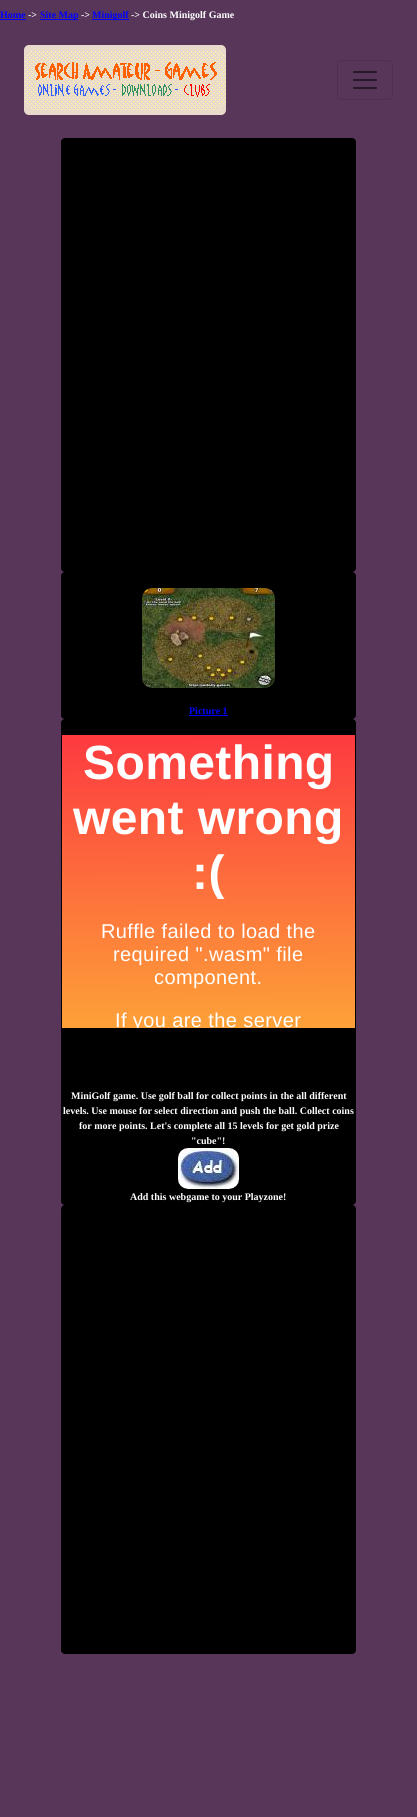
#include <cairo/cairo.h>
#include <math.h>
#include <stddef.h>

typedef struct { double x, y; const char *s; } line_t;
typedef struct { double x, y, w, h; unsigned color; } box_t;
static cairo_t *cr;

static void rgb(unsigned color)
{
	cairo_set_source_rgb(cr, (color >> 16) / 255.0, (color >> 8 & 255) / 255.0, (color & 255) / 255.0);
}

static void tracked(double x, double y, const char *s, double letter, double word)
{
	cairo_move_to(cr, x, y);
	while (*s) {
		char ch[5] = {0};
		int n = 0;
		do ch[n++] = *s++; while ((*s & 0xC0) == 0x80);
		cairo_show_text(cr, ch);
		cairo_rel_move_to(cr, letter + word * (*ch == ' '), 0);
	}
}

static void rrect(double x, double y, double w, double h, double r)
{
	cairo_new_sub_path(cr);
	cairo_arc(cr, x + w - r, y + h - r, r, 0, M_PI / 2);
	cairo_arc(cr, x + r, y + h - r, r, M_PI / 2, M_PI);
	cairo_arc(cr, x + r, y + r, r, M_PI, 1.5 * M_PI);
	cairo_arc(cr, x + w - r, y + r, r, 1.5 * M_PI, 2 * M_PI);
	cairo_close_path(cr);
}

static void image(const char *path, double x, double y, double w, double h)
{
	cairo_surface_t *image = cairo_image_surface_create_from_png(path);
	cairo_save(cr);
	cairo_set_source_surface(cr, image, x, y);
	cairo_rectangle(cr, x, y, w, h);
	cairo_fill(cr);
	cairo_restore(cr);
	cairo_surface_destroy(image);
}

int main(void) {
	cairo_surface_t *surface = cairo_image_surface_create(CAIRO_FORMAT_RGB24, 417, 1817);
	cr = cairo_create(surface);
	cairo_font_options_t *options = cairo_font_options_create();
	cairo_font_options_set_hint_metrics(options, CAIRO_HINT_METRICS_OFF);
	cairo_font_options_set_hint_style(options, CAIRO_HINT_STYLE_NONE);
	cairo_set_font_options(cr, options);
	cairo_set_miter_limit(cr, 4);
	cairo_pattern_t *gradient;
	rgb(0x57365a);
	cairo_paint(cr);
	{
		static const box_t items[] = {
			{0, 19, 26, 1, 0x0000ff},
			{40, 19, 38, 1, 0x0000ff},
			{92, 19, 37, 1, 0x0000ff},
		};
		for (size_t i = 0; i < sizeof items / sizeof *items; i++) {
			rgb(items[i].color);
			cairo_rectangle(cr, items[i].x, items[i].y, items[i].w, items[i].h);
			cairo_fill(cr);
		}
	}
	rgb(0xe9dacb);
	rrect(24, 45, 202, 70, 5);
	cairo_fill(cr);
	image("img/1.png", 25, 51, 201, 59);
	rrect(337.5, 60.5, 55, 39, 3.5);
	rgb(0x4e3151);
	cairo_set_line_width(cr, 1);
	cairo_stroke(cr);
	image("img/2.png", 353, 71, 24, 18);
	rgb(0x000000);
	rrect(61, 138, 295, 434, 4);
	cairo_fill(cr);
	rrect(61, 572, 295, 147, 4);
	cairo_fill(cr);
	image("img/3.png", 142, 588, 133, 100);
	rgb(0x0000ff);
	cairo_rectangle(cr, 189, 715, 39, 1);
	cairo_fill(cr);
	rgb(0x000000);
	rrect(61, 719, 295, 486, 4);
	cairo_fill(cr);
	gradient = cairo_pattern_create_linear(208, 735, 209, 1028);
	cairo_pattern_add_color_stop_rgba(gradient, 0, 0.992, 0.227, 0.251, 1);
	cairo_pattern_add_color_stop_rgba(gradient, 1, 0.992, 0.631, 0.22, 1);
	cairo_set_source(cr, gradient);
	cairo_pattern_destroy(gradient);
	cairo_rectangle(cr, 62, 735, 293, 293);
	cairo_fill(cr);
	image("img/4.png", 178, 1148, 61, 41);
	rgb(0x000000);
	rrect(61, 1205, 295, 449, 4);
	cairo_fill(cr);
	cairo_select_font_face(cr, "Liberation Serif", CAIRO_FONT_SLANT_NORMAL, CAIRO_FONT_WEIGHT_BOLD);
	cairo_set_font_size(cr, 10);
	rgb(0x0000ff);
	cairo_move_to(cr, 0, 18);
	cairo_show_text(cr, "Home");
	rgb(0xffffff);
	cairo_move_to(cr, 28, 18);
	cairo_show_text(cr, "->");
	rgb(0x0000ff);
	cairo_move_to(cr, 40, 18);
	cairo_show_text(cr, "Site Map");
	rgb(0xffffff);
	cairo_move_to(cr, 81, 18);
	cairo_show_text(cr, "->");
	rgb(0x0000ff);
	cairo_move_to(cr, 92, 18);
	cairo_show_text(cr, "Minigolf");
	rgb(0xffffff);
	cairo_move_to(cr, 131, 18);
	cairo_show_text(cr, "-> Coins Minigolf Game");
	rgb(0x0000ff);
	cairo_move_to(cr, 189, 714);
	cairo_show_text(cr, "Picture 1");
	cairo_select_font_face(cr, "Liberation Sans", CAIRO_FONT_SLANT_NORMAL, CAIRO_FONT_WEIGHT_BOLD);
	cairo_set_font_size(cr, 48);
	rgb(0xffffff);
	{
		static const line_t items[] = {
			{83, 779, "Something"},
			{73, 834, "went wrong"},
			{192, 889, ":("},
		};
		for (size_t i = 0; i < sizeof items / sizeof *items; i++) {
			tracked(items[i].x, items[i].y, items[i].s, 0.4, 0);
		}
	}
	cairo_select_font_face(cr, "Liberation Sans", CAIRO_FONT_SLANT_NORMAL, CAIRO_FONT_WEIGHT_NORMAL);
	cairo_set_font_size(cr, 20);
	{
		static const line_t items[] = {
			{101, 938, "Ruffle failed to load the"},
			{113, 961, "required \".wasm\" file"},
			{154, 984, "component."},
		};
		for (size_t i = 0; i < sizeof items / sizeof *items; i++) {
			tracked(items[i].x, items[i].y, items[i].s, 0.4, 0);
		}
	}
	cairo_save(cr);
	cairo_rectangle(cr, 62, 735, 293, 293);
	cairo_clip(cr);
	tracked(115, 1027, "If you are the server", 0.4, 0);
	cairo_restore(cr);
	cairo_select_font_face(cr, "Liberation Serif", CAIRO_FONT_SLANT_NORMAL, CAIRO_FONT_WEIGHT_BOLD);
	cairo_set_font_size(cr, 10);
	{
		static const line_t items[] = {
			{71, 1099, "MiniGolf game. Use golf ball for collect points in the all different"},
			{63, 1114, "levels. Use mouse for select direction and push the ball. Collect coins"},
			{79, 1129, "for more points. Let's complete all 15 levels for get gold prize"},
			{191, 1144, "\"cube\"!"},
			{130, 1200, "Add this webgame to your Playzone!"},
		};
		for (size_t i = 0; i < sizeof items / sizeof *items; i++) {
			cairo_move_to(cr, items[i].x, items[i].y);
			cairo_show_text(cr, items[i].s);
		}
	}
	cairo_surface_write_to_png(surface, "page.png");
	cairo_font_options_destroy(options);
	cairo_destroy(cr);
	cairo_surface_destroy(surface);
	return 0;
}
